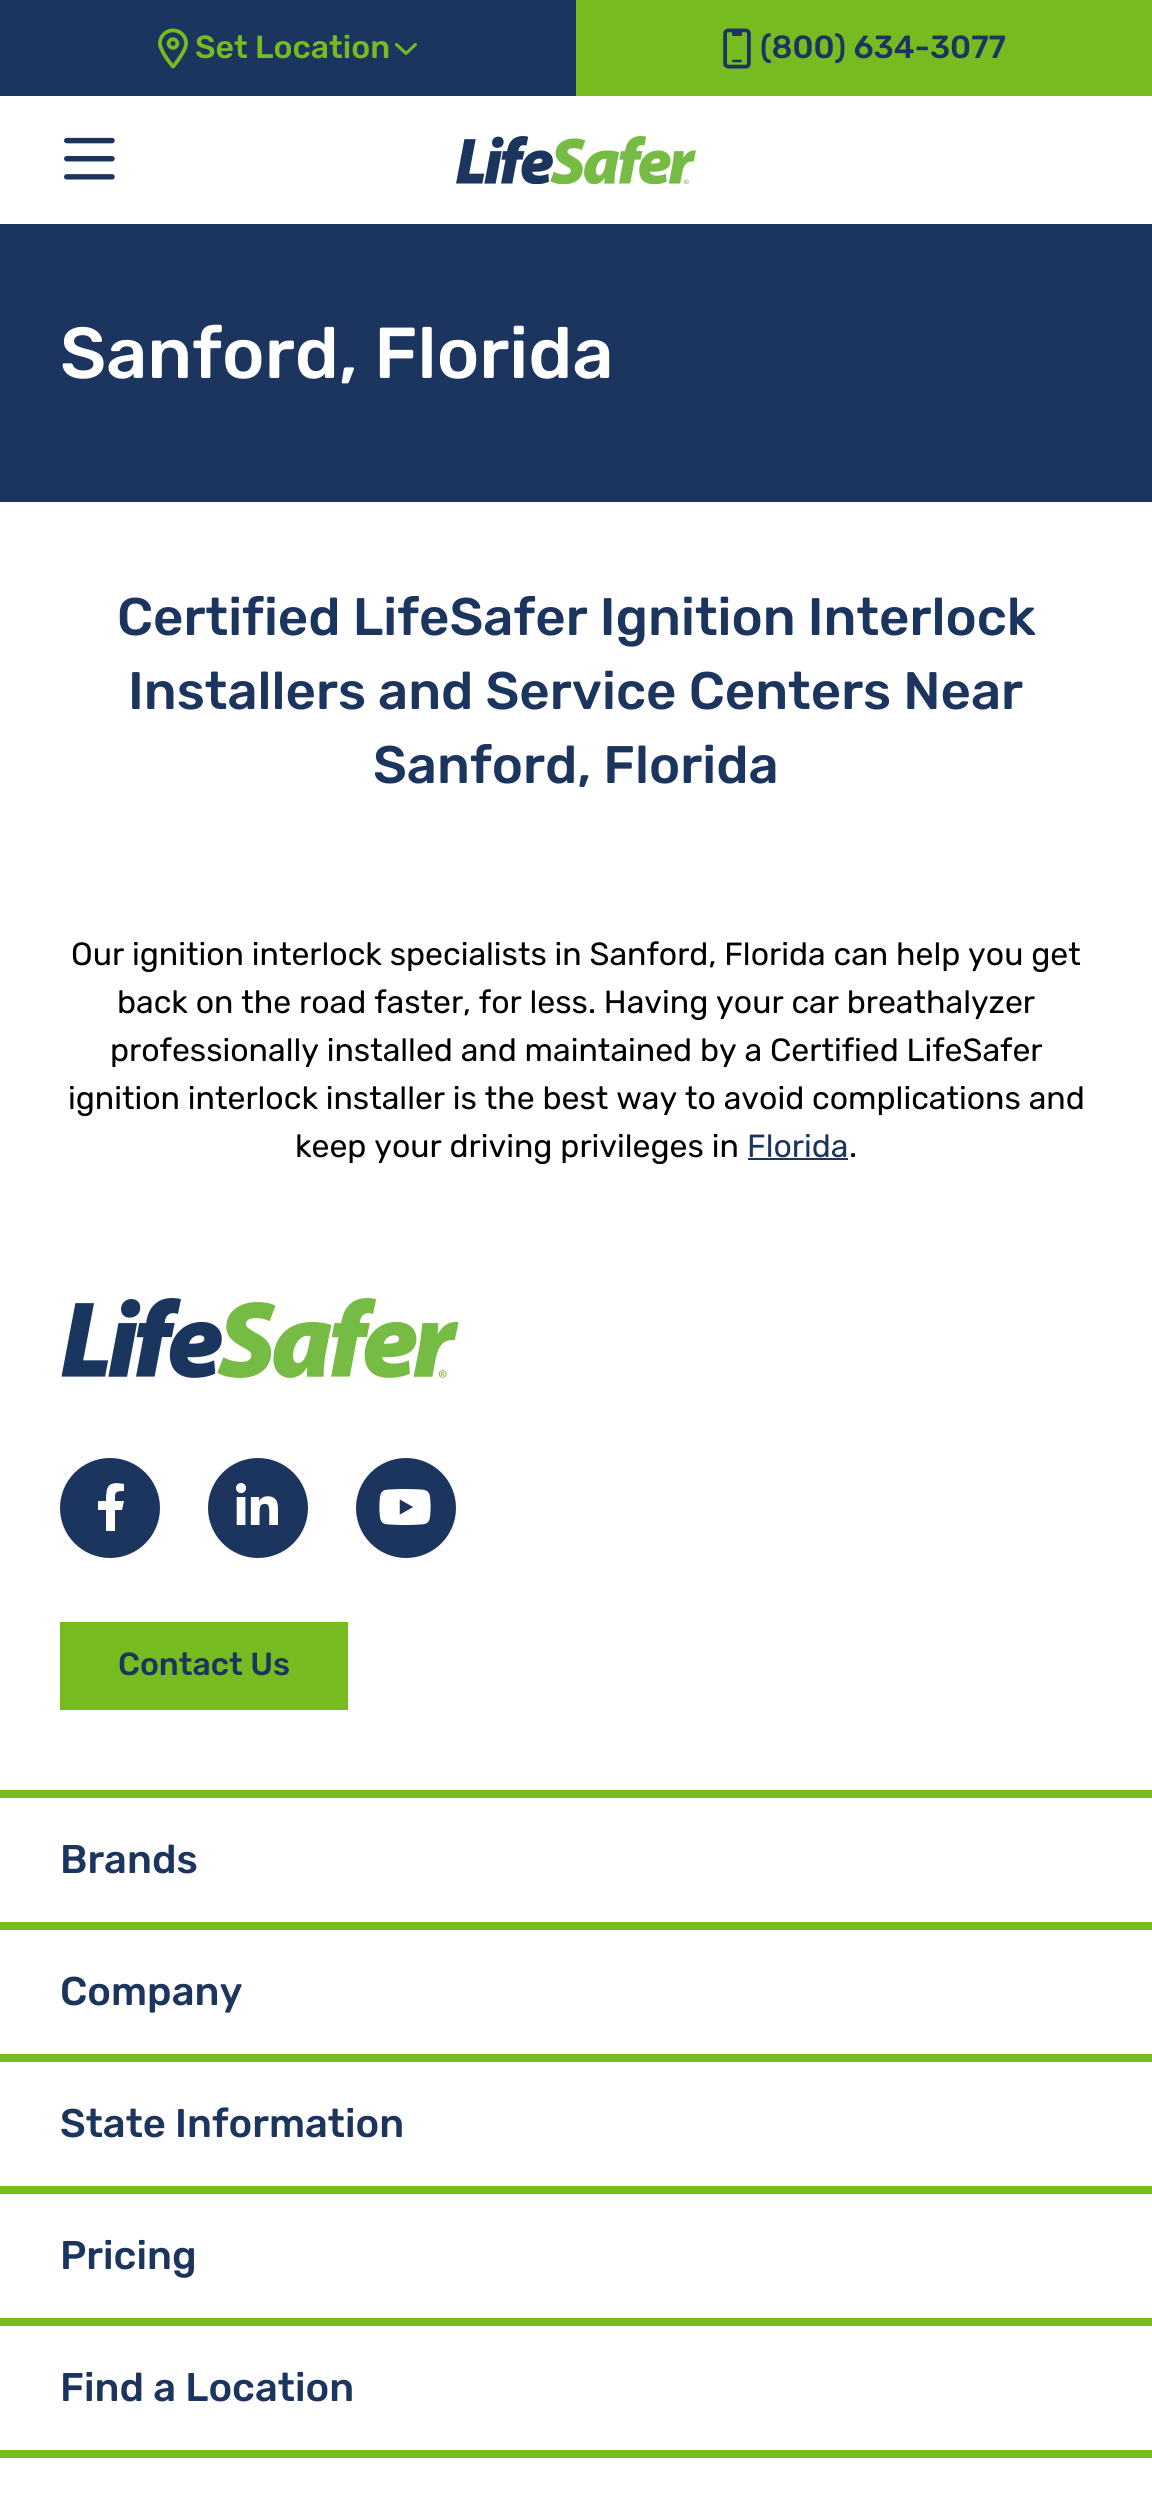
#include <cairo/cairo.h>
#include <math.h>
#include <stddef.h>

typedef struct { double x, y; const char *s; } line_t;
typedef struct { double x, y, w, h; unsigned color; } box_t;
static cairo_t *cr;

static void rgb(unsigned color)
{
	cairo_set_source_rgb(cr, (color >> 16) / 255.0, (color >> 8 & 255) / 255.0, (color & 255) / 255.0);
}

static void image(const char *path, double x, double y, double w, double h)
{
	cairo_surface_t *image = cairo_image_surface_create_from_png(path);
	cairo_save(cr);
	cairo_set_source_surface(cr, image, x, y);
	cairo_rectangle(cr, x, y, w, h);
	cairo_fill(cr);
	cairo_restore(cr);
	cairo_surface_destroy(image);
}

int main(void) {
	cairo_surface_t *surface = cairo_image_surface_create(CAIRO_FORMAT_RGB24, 1152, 2516);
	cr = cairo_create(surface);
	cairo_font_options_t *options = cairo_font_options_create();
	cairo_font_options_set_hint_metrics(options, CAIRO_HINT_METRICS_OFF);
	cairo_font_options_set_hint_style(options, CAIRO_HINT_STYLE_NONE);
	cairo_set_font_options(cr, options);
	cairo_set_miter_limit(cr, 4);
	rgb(0xffffff);
	cairo_paint(cr);
	rgb(0x1c355e);
	cairo_rectangle(cr, 0, 0, 576, 96);
	cairo_fill(cr);
	image("img/1.png", 158, 28, 30, 41);
	image("img/2.png", 395, 43, 22, 12);
	rgb(0x76bc21);
	cairo_rectangle(cr, 576, 0, 576, 96);
	cairo_fill(cr);
	image("img/3.png", 723, 28, 28, 41);
	image("img/4.png", 64, 137, 51, 43);
	image("img/5.png", 456, 136, 240, 48);
	rgb(0x1c355e);
	cairo_rectangle(cr, 0, 224, 1152, 278);
	cairo_fill(cr);
	cairo_rectangle(cr, 748, 1158, 100, 2);
	cairo_fill(cr);
	image("img/6.png", 61, 1298, 398, 80);
	cairo_arc(cr, 110, 1508, 50, 0, 2 * M_PI);
	cairo_fill(cr);
	rgb(0xffffff);
	cairo_new_path(cr);
	cairo_move_to(cr, 122, 1510);
	cairo_line_to(cr, 124, 1501);
	cairo_line_to(cr, 115, 1501);
	cairo_curve_to(cr, 115, 1493, 114, 1491, 124, 1491);
	cairo_line_to(cr, 124, 1484);
	cairo_curve_to(cr, 108, 1481, 106, 1486, 106, 1501);
	cairo_line_to(cr, 98, 1501);
	cairo_line_to(cr, 98, 1510);
	cairo_line_to(cr, 106, 1510);
	cairo_line_to(cr, 106, 1531);
	cairo_line_to(cr, 115, 1531);
	cairo_line_to(cr, 115, 1510);
	cairo_close_path(cr);
	cairo_fill(cr);
	rgb(0x1c355e);
	cairo_arc(cr, 258, 1508, 50, 0, 2 * M_PI);
	cairo_fill(cr);
	image("img/7.png", 236, 1483, 42, 42);
	cairo_arc(cr, 406, 1508, 50, 0, 2 * M_PI);
	cairo_fill(cr);
	image("img/8.png", 379, 1489, 52, 36);
	{
		static const box_t items[] = {
			{60, 1622, 288, 88, 0x76bc21},
			{0, 1790, 1152, 8, 0x76bc21},
			{0, 1922, 1152, 8, 0x76bc21},
			{0, 2054, 1152, 8, 0x76bc21},
			{0, 2186, 1152, 8, 0x76bc21},
			{0, 2318, 1152, 8, 0x76bc21},
			{0, 2450, 1152, 8, 0x76bc21},
		};
		for (size_t i = 0; i < sizeof items / sizeof *items; i++) {
			rgb(items[i].color);
			cairo_rectangle(cr, items[i].x, items[i].y, items[i].w, items[i].h);
			cairo_fill(cr);
		}
	}
	cairo_select_font_face(cr, "Rubik Medium", CAIRO_FONT_SLANT_NORMAL, CAIRO_FONT_WEIGHT_NORMAL);
	cairo_set_font_size(cr, 32);
	cairo_move_to(cr, 195, 58);
	cairo_show_text(cr, "Set Location");
	rgb(0x1c355e);
	cairo_move_to(cr, 760, 58);
	cairo_show_text(cr, "(800) 634-3077");
	cairo_set_font_size(cr, 72);
	rgb(0xffffff);
	cairo_move_to(cr, 60, 378);
	cairo_show_text(cr, "Sanford, Florida");
	cairo_set_font_size(cr, 52.75);
	rgb(0x1c355e);
	{
		static const line_t items[] = {
			{117, 635, "Certified LifeSafer Ignition Interlock"},
			{128, 709, "Installers and Service Centers Near"},
			{373, 783, "Sanford, Florida"},
		};
		for (size_t i = 0; i < sizeof items / sizeof *items; i++) {
			cairo_move_to(cr, items[i].x, items[i].y);
			cairo_show_text(cr, items[i].s);
		}
	}
	cairo_select_font_face(cr, "Rubik", CAIRO_FONT_SLANT_NORMAL, CAIRO_FONT_WEIGHT_NORMAL);
	cairo_set_font_size(cr, 32);
	rgb(0x000000);
	{
		static const line_t items[] = {
			{71, 965, "Our ignition interlock specialists in Sanford, Florida can help you get"},
			{117, 1013, "back on the road faster, for less. Having your car breathalyzer"},
			{110, 1061, "professionally installed and maintained by a Certified LifeSafer"},
			{68, 1109, "ignition interlock installer is the best way to avoid complications and"},
			{295, 1157, "keep your driving privileges in"},
		};
		for (size_t i = 0; i < sizeof items / sizeof *items; i++) {
			cairo_move_to(cr, items[i].x, items[i].y);
			cairo_show_text(cr, items[i].s);
		}
	}
	rgb(0x1c355e);
	cairo_move_to(cr, 747, 1157);
	cairo_show_text(cr, "Florida");
	rgb(0x000000);
	cairo_move_to(cr, 849, 1157);
	cairo_show_text(cr, ".");
	cairo_select_font_face(cr, "Rubik Medium", CAIRO_FONT_SLANT_NORMAL, CAIRO_FONT_WEIGHT_NORMAL);
	rgb(0x1c355e);
	cairo_move_to(cr, 118, 1675);
	cairo_show_text(cr, "Contact Us");
	cairo_set_font_size(cr, 40);
	{
		static const line_t items[] = {
			{60, 1873, "Brands"},
			{60, 2005, "Company"},
			{60, 2137, "State Information"},
			{60, 2269, "Pricing"},
			{60, 2401, "Find a Location"},
		};
		for (size_t i = 0; i < sizeof items / sizeof *items; i++) {
			cairo_move_to(cr, items[i].x, items[i].y);
			cairo_show_text(cr, items[i].s);
		}
	}
	cairo_surface_write_to_png(surface, "page.png");
	cairo_font_options_destroy(options);
	cairo_destroy(cr);
	cairo_surface_destroy(surface);
	return 0;
}
